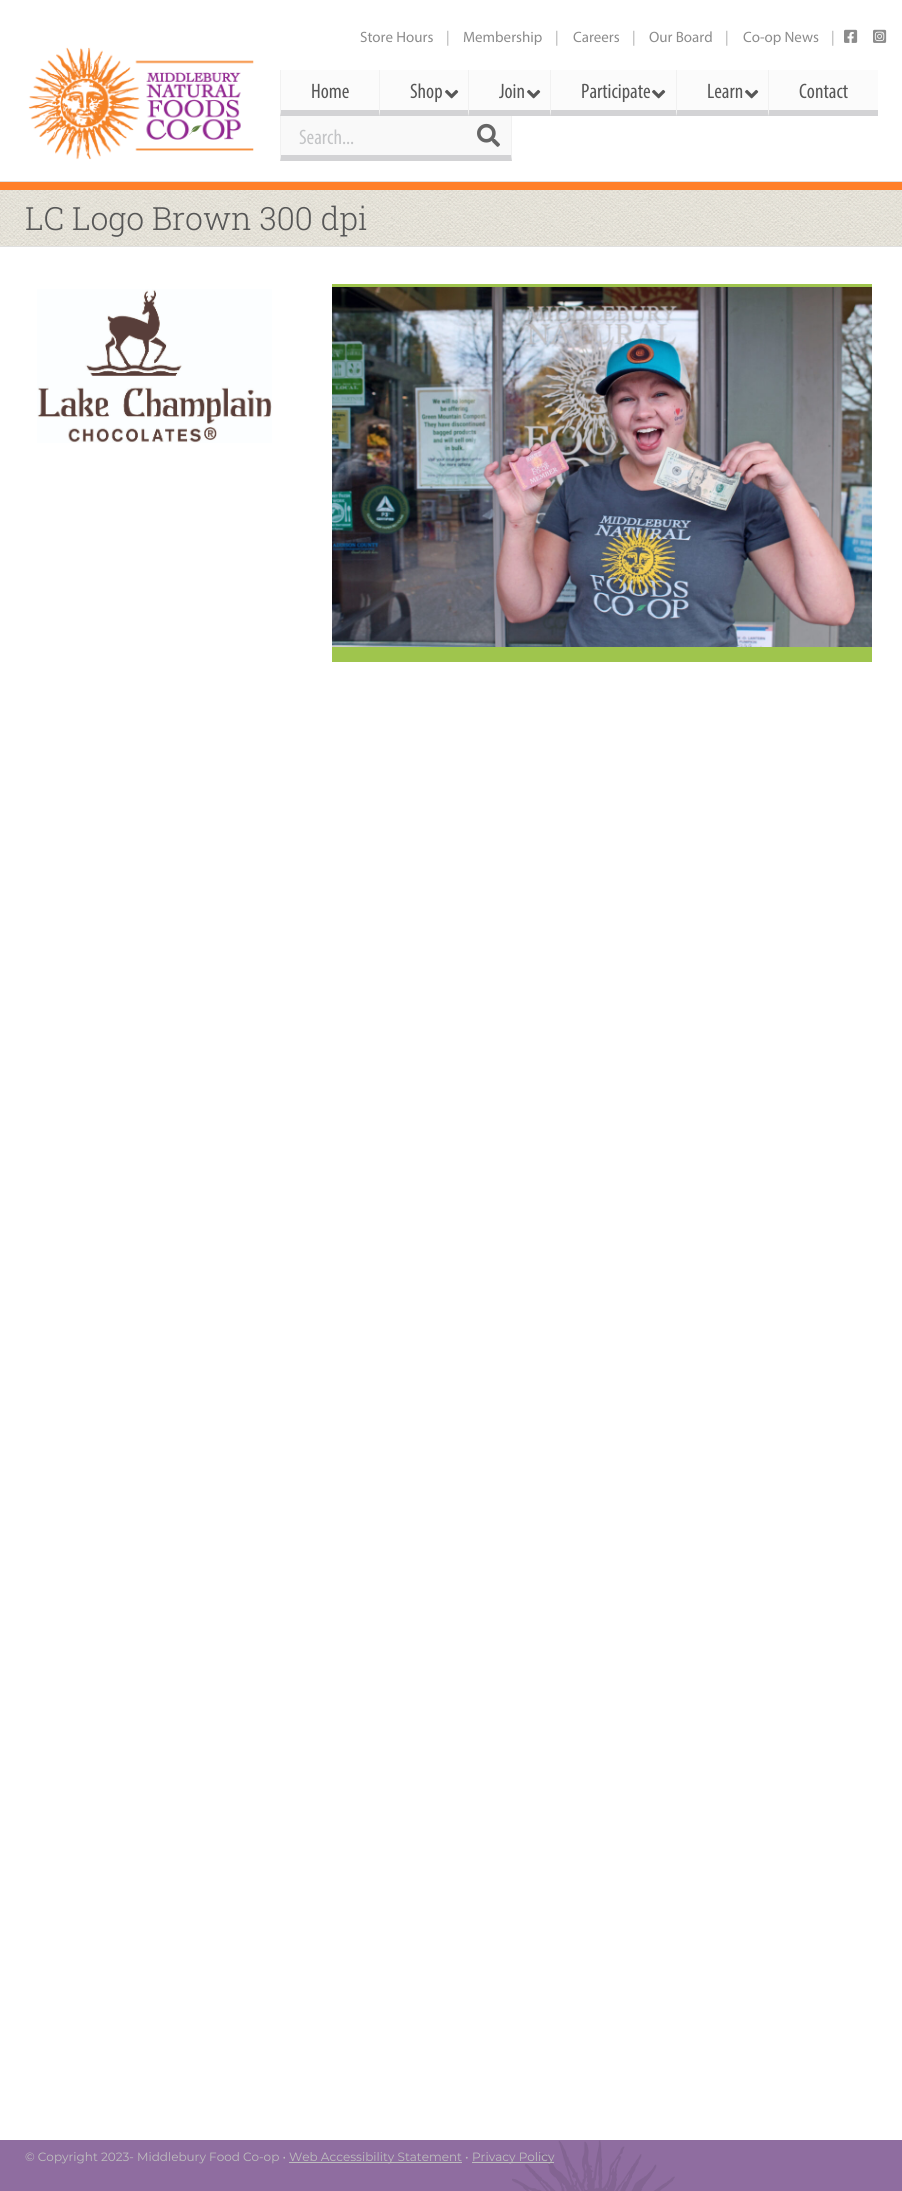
#include <cairo/cairo.h>
#include <math.h>
#include <stddef.h>

typedef struct { double x, y; const char *s; } line_t;
static cairo_t *cr;

static void rgb(unsigned color)
{
	cairo_set_source_rgb(cr, (color >> 16) / 255.0, (color >> 8 & 255) / 255.0, (color & 255) / 255.0);
}

static void image(const char *path, double x, double y, double w, double h)
{
	cairo_surface_t *image = cairo_image_surface_create_from_png(path);
	cairo_save(cr);
	cairo_set_source_surface(cr, image, x, y);
	cairo_rectangle(cr, x, y, w, h);
	cairo_fill(cr);
	cairo_restore(cr);
	cairo_surface_destroy(image);
}

int main(void) {
	cairo_surface_t *surface = cairo_image_surface_create(CAIRO_FORMAT_RGB24, 902, 2191);
	cr = cairo_create(surface);
	cairo_font_options_t *options = cairo_font_options_create();
	cairo_font_options_set_hint_metrics(options, CAIRO_HINT_METRICS_OFF);
	cairo_font_options_set_hint_style(options, CAIRO_HINT_STYLE_NONE);
	cairo_set_font_options(cr, options);
	cairo_set_miter_limit(cr, 4);
	rgb(0xffffff);
	cairo_paint(cr);
	image("img/1.png", 844, 29, 14, 14);
	image("img/2.png", 873, 29, 14, 14);
	rgb(0xff7f29);
	cairo_rectangle(cr, 0, 182, 902, 8);
	cairo_fill(cr);
	image("img/3.png", 28, 47, 226, 113);
	rgb(0xfbfbfb);
	cairo_rectangle(cr, 280, 70, 598, 46);
	cairo_fill(cr);
	rgb(0xd3d3d5);
	cairo_new_path(cr);
	cairo_move_to(cr, 379, 116);
	cairo_line_to(cr, 280, 116);
	cairo_line_to(cr, 281, 110);
	cairo_line_to(cr, 379, 110);
	cairo_close_path(cr);
	cairo_fill(cr);
	rgb(0xf1f1f1);
	cairo_new_path(cr);
	cairo_move_to(cr, 280, 116);
	cairo_line_to(cr, 280, 70);
	cairo_line_to(cr, 281, 70);
	cairo_line_to(cr, 281, 110);
	cairo_close_path(cr);
	cairo_fill(cr);
	rgb(0xd3d3d5);
	cairo_new_path(cr);
	cairo_move_to(cr, 468, 116);
	cairo_line_to(cr, 379, 116);
	cairo_line_to(cr, 380, 110);
	cairo_line_to(cr, 468, 110);
	cairo_close_path(cr);
	cairo_fill(cr);
	rgb(0xf1f1f1);
	cairo_new_path(cr);
	cairo_move_to(cr, 379, 116);
	cairo_line_to(cr, 379, 70);
	cairo_line_to(cr, 380, 70);
	cairo_line_to(cr, 380, 110);
	cairo_close_path(cr);
	cairo_fill(cr);
	image("img/4.png", 445, 89, 14, 10);
	rgb(0xd3d3d5);
	cairo_new_path(cr);
	cairo_move_to(cr, 550, 116);
	cairo_line_to(cr, 468, 116);
	cairo_line_to(cr, 469, 110);
	cairo_line_to(cr, 550, 110);
	cairo_close_path(cr);
	cairo_fill(cr);
	rgb(0xf1f1f1);
	cairo_new_path(cr);
	cairo_move_to(cr, 468, 116);
	cairo_line_to(cr, 468, 70);
	cairo_line_to(cr, 469, 70);
	cairo_line_to(cr, 469, 110);
	cairo_close_path(cr);
	cairo_fill(cr);
	image("img/4.png", 527, 89, 14, 10);
	rgb(0xd3d3d5);
	cairo_new_path(cr);
	cairo_move_to(cr, 676, 116);
	cairo_line_to(cr, 550, 116);
	cairo_line_to(cr, 551, 110);
	cairo_line_to(cr, 676, 110);
	cairo_close_path(cr);
	cairo_fill(cr);
	rgb(0xf1f1f1);
	cairo_new_path(cr);
	cairo_move_to(cr, 550, 116);
	cairo_line_to(cr, 550, 70);
	cairo_line_to(cr, 551, 70);
	cairo_line_to(cr, 551, 110);
	cairo_close_path(cr);
	cairo_fill(cr);
	image("img/4.png", 652, 89, 14, 10);
	rgb(0xd3d3d5);
	cairo_new_path(cr);
	cairo_move_to(cr, 768, 116);
	cairo_line_to(cr, 676, 116);
	cairo_line_to(cr, 677, 110);
	cairo_line_to(cr, 768, 110);
	cairo_close_path(cr);
	cairo_fill(cr);
	rgb(0xf1f1f1);
	cairo_new_path(cr);
	cairo_move_to(cr, 676, 116);
	cairo_line_to(cr, 676, 70);
	cairo_line_to(cr, 677, 70);
	cairo_line_to(cr, 677, 110);
	cairo_close_path(cr);
	cairo_fill(cr);
	image("img/4.png", 745, 89, 14, 10);
	rgb(0xd3d3d5);
	cairo_new_path(cr);
	cairo_move_to(cr, 878, 116);
	cairo_line_to(cr, 768, 116);
	cairo_line_to(cr, 769, 110);
	cairo_line_to(cr, 878, 110);
	cairo_close_path(cr);
	cairo_fill(cr);
	rgb(0xf1f1f1);
	cairo_new_path(cr);
	cairo_move_to(cr, 768, 116);
	cairo_line_to(cr, 768, 70);
	cairo_line_to(cr, 769, 70);
	cairo_line_to(cr, 769, 110);
	cairo_close_path(cr);
	cairo_fill(cr);
	cairo_new_path(cr);
	cairo_move_to(cr, 512, 116);
	cairo_line_to(cr, 512, 161);
	cairo_line_to(cr, 511, 155);
	cairo_line_to(cr, 511, 116);
	cairo_close_path(cr);
	cairo_fill(cr);
	rgb(0xd3d3d5);
	cairo_new_path(cr);
	cairo_move_to(cr, 512, 161);
	cairo_line_to(cr, 280, 161);
	cairo_line_to(cr, 281, 155);
	cairo_line_to(cr, 511, 155);
	cairo_close_path(cr);
	cairo_fill(cr);
	rgb(0xf1f1f1);
	cairo_new_path(cr);
	cairo_move_to(cr, 280, 161);
	cairo_line_to(cr, 280, 116);
	cairo_line_to(cr, 281, 116);
	cairo_line_to(cr, 281, 155);
	cairo_close_path(cr);
	cairo_fill(cr);
	rgb(0xf9f9f9);
	cairo_rectangle(cr, 281, 116, 230, 39);
	cairo_fill(cr);
	image("img/5.png", 477, 123, 23, 24);
	rgb(0xe0e0e0);
	cairo_rectangle(cr, 0, 181, 902, 1);
	cairo_fill(cr);
	image("img/6.png", 0, 190, 902, 56);
	cairo_rectangle(cr, 0, 246, 902, 1);
	cairo_fill(cr);
	image("img/7.png", 37, 289, 235, 154);
	rgb(0x9fc54d);
	cairo_rectangle(cr, 332, 284, 540, 3);
	cairo_fill(cr);
	cairo_rectangle(cr, 332, 647, 540, 15);
	cairo_fill(cr);
	image("img/8.png", 332, 287, 540, 360);
	rgb(0x8f6da0);
	cairo_rectangle(cr, 0, 2140, 902, 51);
	cairo_fill(cr);
	image("img/9.png", 512, 2140, 163, 51);
	rgb(0xbebebe);
	cairo_rectangle(cr, 289, 2162, 173, 1);
	cairo_fill(cr);
	cairo_rectangle(cr, 472, 2162, 82, 1);
	cairo_fill(cr);
	cairo_select_font_face(cr, "Myriad", CAIRO_FONT_SLANT_NORMAL, CAIRO_FONT_WEIGHT_NORMAL);
	cairo_set_font_size(cr, 15);
	rgb(0x8c8c8c);
	cairo_move_to(cr, 360, 42);
	cairo_show_text(cr, "Store Hours");
	rgb(0xb0b0b0);
	cairo_move_to(cr, 446, 42);
	cairo_show_text(cr, "|");
	rgb(0x8c8c8c);
	cairo_move_to(cr, 463, 42);
	cairo_show_text(cr, "Membership");
	rgb(0xb0b0b0);
	cairo_move_to(cr, 555, 42);
	cairo_show_text(cr, "|");
	rgb(0x8c8c8c);
	cairo_move_to(cr, 573, 42);
	cairo_show_text(cr, "Careers");
	rgb(0xb0b0b0);
	cairo_move_to(cr, 632, 42);
	cairo_show_text(cr, "|");
	rgb(0x8c8c8c);
	cairo_move_to(cr, 649, 42);
	cairo_show_text(cr, "Our Board");
	rgb(0xb0b0b0);
	cairo_move_to(cr, 725, 42);
	cairo_show_text(cr, "|");
	rgb(0x8c8c8c);
	cairo_move_to(cr, 743, 42);
	cairo_show_text(cr, "Co-op News");
	rgb(0xb0b0b0);
	cairo_move_to(cr, 831, 42);
	cairo_show_text(cr, "|");
	cairo_select_font_face(cr, "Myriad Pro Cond", CAIRO_FONT_SLANT_NORMAL, CAIRO_FONT_WEIGHT_NORMAL);
	cairo_set_font_size(cr, 21);
	rgb(0x575757);
	{
		static const line_t items[] = {
			{311, 98, "Home"},
			{410, 98, "Shop"},
			{499, 98, "Join"},
			{581, 98, "Participate"},
			{707, 98, "Learn"},
			{799, 98, "Contact"},
		};
		for (size_t i = 0; i < sizeof items / sizeof *items; i++) {
			cairo_move_to(cr, items[i].x, items[i].y);
			cairo_show_text(cr, items[i].s);
		}
	}
	rgb(0xc3c4c6);
	cairo_move_to(cr, 299, 144);
	cairo_show_text(cr, "Search...");
	cairo_select_font_face(cr, "Roboto Slab Light", CAIRO_FONT_SLANT_NORMAL, CAIRO_FONT_WEIGHT_NORMAL);
	cairo_set_font_size(cr, 32);
	rgb(0x575757);
	cairo_move_to(cr, 25, 230);
	cairo_show_text(cr, "LC Logo Brown 300 dpi");
	cairo_select_font_face(cr, "Montserrat", CAIRO_FONT_SLANT_NORMAL, CAIRO_FONT_WEIGHT_NORMAL);
	cairo_set_font_size(cr, 12);
	rgb(0xbebebe);
	{
		static const line_t items[] = {
			{25, 2161, "© Copyright 2023- Middlebury Food Co-op •"},
			{289, 2161, "Web Accessibility Statement •"},
			{472, 2161, "Privacy Policy"},
		};
		for (size_t i = 0; i < sizeof items / sizeof *items; i++) {
			cairo_move_to(cr, items[i].x, items[i].y);
			cairo_show_text(cr, items[i].s);
		}
	}
	cairo_surface_write_to_png(surface, "page.png");
	cairo_font_options_destroy(options);
	cairo_destroy(cr);
	cairo_surface_destroy(surface);
	return 0;
}
